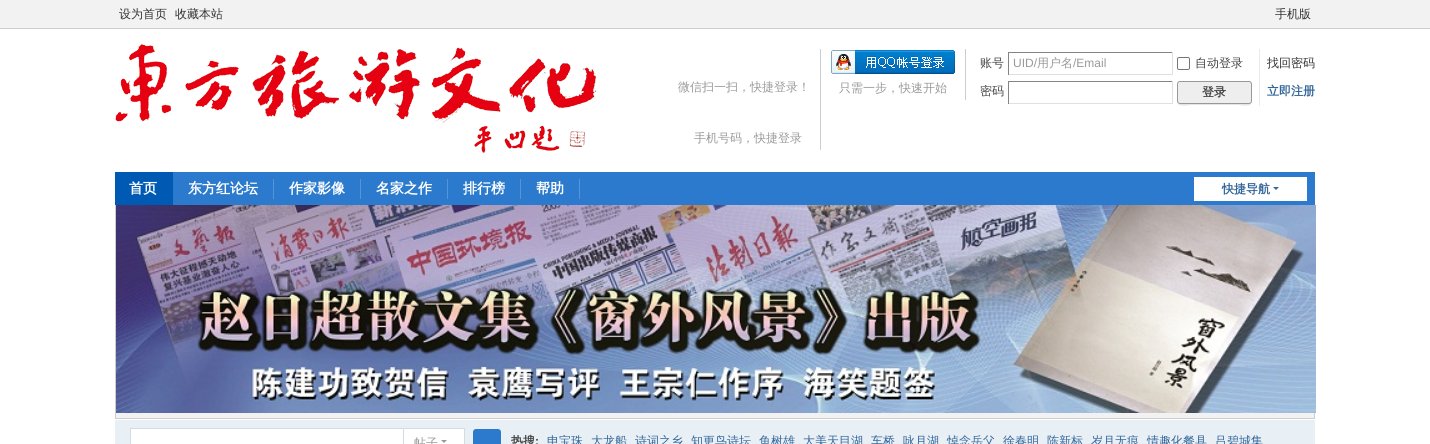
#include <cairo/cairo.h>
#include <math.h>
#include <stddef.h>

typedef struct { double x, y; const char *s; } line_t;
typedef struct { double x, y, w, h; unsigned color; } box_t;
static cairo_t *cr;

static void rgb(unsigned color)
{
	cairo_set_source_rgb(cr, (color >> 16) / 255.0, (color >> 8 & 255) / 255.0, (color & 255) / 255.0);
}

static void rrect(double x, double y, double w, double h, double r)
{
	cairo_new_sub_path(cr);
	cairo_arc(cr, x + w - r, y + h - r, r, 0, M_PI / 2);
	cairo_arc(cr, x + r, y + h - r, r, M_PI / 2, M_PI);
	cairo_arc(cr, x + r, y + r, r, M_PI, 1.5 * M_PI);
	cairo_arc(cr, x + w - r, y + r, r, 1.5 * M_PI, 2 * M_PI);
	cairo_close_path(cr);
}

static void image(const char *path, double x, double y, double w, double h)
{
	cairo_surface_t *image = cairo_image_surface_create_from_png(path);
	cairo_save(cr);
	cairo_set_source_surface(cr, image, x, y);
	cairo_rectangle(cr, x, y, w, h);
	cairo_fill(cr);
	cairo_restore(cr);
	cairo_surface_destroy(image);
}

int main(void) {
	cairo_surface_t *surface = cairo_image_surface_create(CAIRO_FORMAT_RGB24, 1430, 444);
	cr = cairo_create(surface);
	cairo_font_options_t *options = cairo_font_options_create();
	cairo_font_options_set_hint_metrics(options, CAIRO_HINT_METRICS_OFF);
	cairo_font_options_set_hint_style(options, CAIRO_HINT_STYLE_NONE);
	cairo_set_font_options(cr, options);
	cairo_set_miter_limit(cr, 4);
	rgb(0xffffff);
	cairo_paint(cr);
	rgb(0xf2f2f2);
	cairo_rectangle(cr, 0, 0, 1430, 28);
	cairo_fill(cr);
	rgb(0xcdcdcd);
	cairo_rectangle(cr, 0, 28, 1430, 1);
	cairo_fill(cr);
	image("img/1.png", 115, 44, 482, 109);
	cairo_rectangle(cr, 820, 49, 1, 101);
	cairo_fill(cr);
	cairo_rectangle(cr, 965, 49, 1, 51);
	cairo_fill(cr);
	image("img/2.png", 831, 50, 124, 24);
	{
		static const box_t items[] = {
			{1008, 52, 165, 1, 0x848484},
			{1172, 52, 1, 23, 0xe0e0e0},
			{1008, 74, 165, 1, 0xe0e0e0},
			{1008, 52, 1, 23, 0x848484},
		};
		for (size_t i = 0; i < sizeof items / sizeof *items; i++) {
			rgb(items[i].color);
			cairo_rectangle(cr, items[i].x, items[i].y, items[i].w, items[i].h);
			cairo_fill(cr);
		}
	}
	rrect(1177.5, 57.5, 12, 12, 1.5);
	rgb(0x767676);
	cairo_set_line_width(cr, 1);
	cairo_stroke(cr);
	{
		static const box_t items[] = {
			{1008, 81, 165, 1, 0x848484},
			{1172, 81, 1, 23, 0xe0e0e0},
			{1008, 103, 165, 1, 0xe0e0e0},
			{1008, 81, 1, 23, 0x848484},
			{1259, 49, 1, 57, 0xe5edf2},
		};
		for (size_t i = 0; i < sizeof items / sizeof *items; i++) {
			rgb(items[i].color);
			cairo_rectangle(cr, items[i].x, items[i].y, items[i].w, items[i].h);
			cairo_fill(cr);
		}
	}
	rgb(0xe5e5e5);
	cairo_new_path(cr);
	cairo_move_to(cr, 1177, 101);
	cairo_curve_to(cr, 1177, 108, 1187, 105, 1192, 105);
	cairo_line_to(cr, 1238, 105);
	cairo_curve_to(cr, 1242, 105, 1252, 108, 1252, 101);
	cairo_curve_to(cr, 1252, 103, 1251, 104, 1249, 104);
	cairo_line_to(cr, 1180, 104);
	cairo_curve_to(cr, 1178, 104, 1177, 103, 1177, 101);
	cairo_close_path(cr);
	cairo_fill(cr);
	rgb(0xeeeeee);
	rrect(1177.5, 81.5, 74, 22, 2.5);
	cairo_fill_preserve(cr);
	rgb(0x999999);
	cairo_stroke(cr);
	{
		static const box_t items[] = {
			{173, 172, 1142, 33, 0x2b7acd},
			{115, 172, 58, 33, 0x005ab4},
			{273, 179, 1, 20, 0x5595d7},
			{360, 179, 1, 20, 0x5595d7},
			{447, 179, 1, 20, 0x5595d7},
			{520, 179, 1, 20, 0x5595d7},
			{579, 179, 1, 20, 0x5595d7},
			{1194, 177, 113, 24, 0xffffff},
		};
		for (size_t i = 0; i < sizeof items / sizeof *items; i++) {
			rgb(items[i].color);
			cairo_rectangle(cr, items[i].x, items[i].y, items[i].w, items[i].h);
			cairo_fill(cr);
		}
	}
	rgb(0x336699);
	cairo_new_path(cr);
	cairo_move_to(cr, 1273, 187);
	cairo_line_to(cr, 1279, 187);
	cairo_line_to(cr, 1276, 190);
	cairo_close_path(cr);
	cairo_fill(cr);
	{
		static const box_t items[] = {
			{116, 413, 1198, 5, 0xf2f2f2},
			{1314, 413, 1, 6, 0xcdcdcd},
			{115, 418, 1200, 1, 0xcdcdcd},
			{115, 205, 1, 214, 0xcdcdcd},
		};
		for (size_t i = 0; i < sizeof items / sizeof *items; i++) {
			rgb(items[i].color);
			cairo_rectangle(cr, items[i].x, items[i].y, items[i].w, items[i].h);
			cairo_fill(cr);
		}
	}
	image("img/3.png", 116, 205, 1200, 208);
	rgb(0xe8eff5);
	cairo_rectangle(cr, 115, 420, 1200, 24);
	cairo_fill(cr);
	rgb(0xcfdee3);
	cairo_rectangle(cr, 402, 428, 63, 1);
	cairo_fill(cr);
	rgb(0xffffff);
	cairo_rectangle(cr, 130.5, 428.5, 273, 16);
	cairo_fill_preserve(cr);
	rgb(0xcfdee3);
	cairo_stroke(cr);
	rgb(0xffffff);
	cairo_rectangle(cr, 404, 429, 60, 15);
	cairo_fill(cr);
	rgb(0xcfdee3);
	cairo_rectangle(cr, 464, 428, 1, 16);
	cairo_fill(cr);
	rgb(0x999999);
	cairo_new_path(cr);
	cairo_move_to(cr, 441, 440);
	cairo_line_to(cr, 447, 440);
	cairo_line_to(cr, 444, 443);
	cairo_close_path(cr);
	cairo_fill(cr);
	rgb(0x2b7acd);
	rrect(473, 429, 28, 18, 3);
	cairo_fill(cr);
	cairo_select_font_face(cr, "WenQuanYi Zen Hei Medium", CAIRO_FONT_SLANT_NORMAL, CAIRO_FONT_WEIGHT_NORMAL);
	cairo_set_font_size(cr, 12);
	rgb(0x333333);
	{
		static const line_t items[] = {
			{119, 18, "设为首页"},
			{175, 18, "收藏本站"},
			{1275, 18, "手机版"},
		};
		for (size_t i = 0; i < sizeof items / sizeof *items; i++) {
			cairo_move_to(cr, items[i].x, items[i].y);
			cairo_show_text(cr, items[i].s);
		}
	}
	rgb(0x999999);
	cairo_move_to(cr, 678, 91);
	cairo_show_text(cr, "微信扫一扫，快捷登录！");
	cairo_move_to(cr, 839, 92);
	cairo_show_text(cr, "只需一步，快速开始");
	rgb(0x444444);
	cairo_move_to(cr, 980, 67);
	cairo_show_text(cr, "账号");
	cairo_select_font_face(cr, "Liberation Sans", CAIRO_FONT_SLANT_NORMAL, CAIRO_FONT_WEIGHT_NORMAL);
	rgb(0x999999);
	cairo_move_to(cr, 1013, 67);
	cairo_show_text(cr, "UID/");
	cairo_select_font_face(cr, "WenQuanYi Zen Hei Medium", CAIRO_FONT_SLANT_NORMAL, CAIRO_FONT_WEIGHT_NORMAL);
	cairo_move_to(cr, 1037, 67);
	cairo_show_text(cr, "用户名");
	cairo_select_font_face(cr, "Liberation Sans", CAIRO_FONT_SLANT_NORMAL, CAIRO_FONT_WEIGHT_NORMAL);
	cairo_move_to(cr, 1073, 67);
	cairo_show_text(cr, "/Email");
	cairo_select_font_face(cr, "WenQuanYi Zen Hei Medium", CAIRO_FONT_SLANT_NORMAL, CAIRO_FONT_WEIGHT_NORMAL);
	rgb(0x444444);
	cairo_move_to(cr, 1195, 67);
	cairo_show_text(cr, "自动登录");
	rgb(0x333333);
	cairo_move_to(cr, 1267, 67);
	cairo_show_text(cr, "找回密码");
	rgb(0x444444);
	cairo_move_to(cr, 980, 95);
	cairo_show_text(cr, "密码");
	cairo_select_font_face(cr, "WenQuanYi Zen Hei", CAIRO_FONT_SLANT_NORMAL, CAIRO_FONT_WEIGHT_BOLD);
	cairo_move_to(cr, 1202, 96);
	cairo_show_text(cr, "登录");
	rgb(0x336699);
	cairo_move_to(cr, 1267, 95);
	cairo_show_text(cr, "立即注册");
	cairo_select_font_face(cr, "WenQuanYi Zen Hei Medium", CAIRO_FONT_SLANT_NORMAL, CAIRO_FONT_WEIGHT_NORMAL);
	rgb(0x999999);
	cairo_move_to(cr, 694, 142);
	cairo_show_text(cr, "手机号码，快捷登录");
	cairo_select_font_face(cr, "WenQuanYi Zen Hei", CAIRO_FONT_SLANT_NORMAL, CAIRO_FONT_WEIGHT_BOLD);
	cairo_set_font_size(cr, 14);
	rgb(0xffffff);
	{
		static const line_t items[] = {
			{129, 193, "首页"},
			{188, 193, "东方红论坛"},
			{289, 193, "作家影像"},
			{376, 193, "名家之作"},
			{463, 193, "排行榜"},
			{536, 193, "帮助"},
		};
		for (size_t i = 0; i < sizeof items / sizeof *items; i++) {
			cairo_move_to(cr, items[i].x, items[i].y);
			cairo_show_text(cr, items[i].s);
		}
	}
	cairo_set_font_size(cr, 12);
	rgb(0x336699);
	cairo_move_to(cr, 1222, 193);
	cairo_show_text(cr, "快捷导航");
	cairo_select_font_face(cr, "WenQuanYi Zen Hei Medium", CAIRO_FONT_SLANT_NORMAL, CAIRO_FONT_WEIGHT_NORMAL);
	rgb(0x999999);
	cairo_move_to(cr, 414, 447);
	cairo_show_text(cr, "帖子");
	cairo_select_font_face(cr, "WenQuanYi Zen Hei", CAIRO_FONT_SLANT_NORMAL, CAIRO_FONT_WEIGHT_BOLD);
	rgb(0x444444);
	cairo_move_to(cr, 511, 445);
	cairo_show_text(cr, "热搜");
	cairo_select_font_face(cr, "Liberation Sans", CAIRO_FONT_SLANT_NORMAL, CAIRO_FONT_WEIGHT_BOLD);
	cairo_move_to(cr, 535, 445);
	cairo_show_text(cr, ":");
	cairo_select_font_face(cr, "WenQuanYi Zen Hei Medium", CAIRO_FONT_SLANT_NORMAL, CAIRO_FONT_WEIGHT_NORMAL);
	rgb(0x336699);
	{
		static const line_t items[] = {
			{547, 445, "申宝珠"},
			{591, 445, "大龙船"},
			{635, 445, "诗词之乡"},
			{691, 445, "知更鸟诗坛"},
			{759, 445, "鱼树雄"},
			{803, 445, "大美天目湖"},
			{871, 445, "车桥"},
			{903, 445, "咏月湖"},
			{947, 445, "悼念岳父"},
			{1003, 445, "徐春明"},
			{1047, 445, "陈新标"},
			{1091, 445, "岁月无痕"},
			{1147, 445, "情趣化餐具"},
			{1215, 445, "吕碧城集"},
		};
		for (size_t i = 0; i < sizeof items / sizeof *items; i++) {
			cairo_move_to(cr, items[i].x, items[i].y);
			cairo_show_text(cr, items[i].s);
		}
	}
	cairo_surface_write_to_png(surface, "page.png");
	cairo_font_options_destroy(options);
	cairo_destroy(cr);
	cairo_surface_destroy(surface);
	return 0;
}
